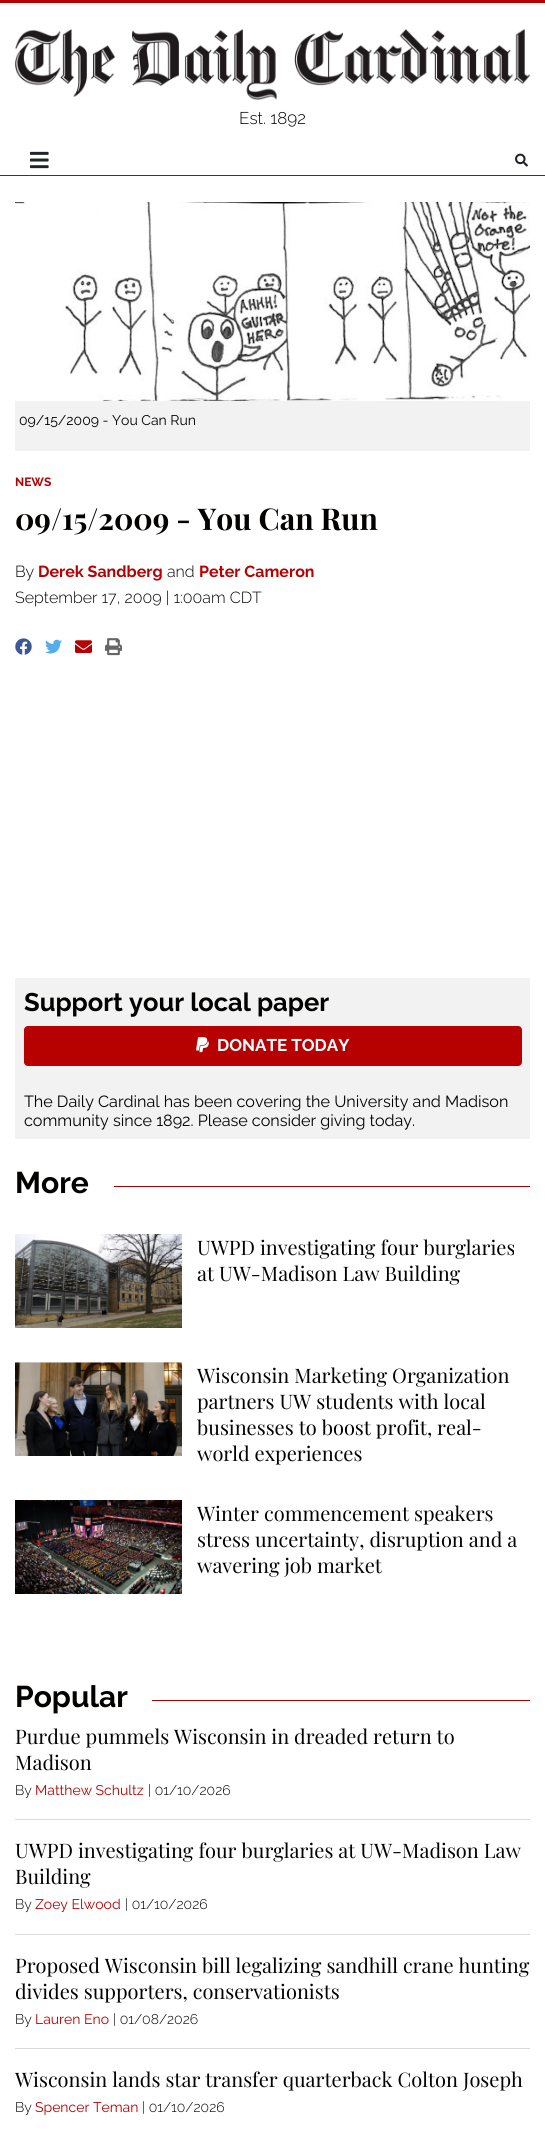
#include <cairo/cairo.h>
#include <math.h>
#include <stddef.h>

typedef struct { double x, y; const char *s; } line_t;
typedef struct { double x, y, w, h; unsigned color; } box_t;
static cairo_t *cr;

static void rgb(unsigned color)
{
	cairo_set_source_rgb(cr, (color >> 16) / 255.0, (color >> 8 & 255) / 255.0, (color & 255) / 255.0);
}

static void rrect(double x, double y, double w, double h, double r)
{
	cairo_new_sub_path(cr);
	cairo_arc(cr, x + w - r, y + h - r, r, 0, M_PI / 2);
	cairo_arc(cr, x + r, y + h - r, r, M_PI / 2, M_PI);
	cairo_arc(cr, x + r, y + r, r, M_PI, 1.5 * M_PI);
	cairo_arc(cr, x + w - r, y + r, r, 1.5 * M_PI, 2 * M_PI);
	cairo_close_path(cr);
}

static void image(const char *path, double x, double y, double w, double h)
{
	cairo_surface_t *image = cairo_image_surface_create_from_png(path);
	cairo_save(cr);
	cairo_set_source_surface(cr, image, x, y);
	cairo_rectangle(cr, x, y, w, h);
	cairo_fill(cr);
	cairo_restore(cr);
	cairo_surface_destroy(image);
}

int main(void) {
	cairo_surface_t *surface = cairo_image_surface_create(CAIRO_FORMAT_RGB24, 545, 2131);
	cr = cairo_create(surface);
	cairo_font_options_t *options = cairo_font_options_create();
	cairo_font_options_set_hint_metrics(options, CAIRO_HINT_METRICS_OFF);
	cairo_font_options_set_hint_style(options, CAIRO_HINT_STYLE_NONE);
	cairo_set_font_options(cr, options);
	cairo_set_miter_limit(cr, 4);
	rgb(0xffffff);
	cairo_paint(cr);
	rgb(0xb70101);
	cairo_rectangle(cr, 0, 0, 545, 3);
	cairo_fill(cr);
	image("img/1.png", 15, 29, 515, 71);
	cairo_rectangle(cr, 0, 175, 545, 1);
	cairo_fill(cr);
	image("img/2.png", 30, 151, 19, 18);
	image("img/3.png", 515, 153, 13, 14);
	rgb(0xf2f2f2);
	cairo_rectangle(cr, 15, 401, 515, 50);
	cairo_fill(cr);
	image("img/4.png", 15, 202, 515, 199);
	image("img/5.png", 15, 638, 17, 17);
	image("img/6.png", 45, 639, 17, 15);
	image("img/7.png", 75, 640, 17, 13);
	image("img/8.png", 105, 638, 17, 18);
	cairo_rectangle(cr, 15, 978, 515, 161);
	cairo_fill(cr);
	rgb(0xb70101);
	rrect(24.5, 1026.5, 497, 39, 3.5);
	cairo_fill_preserve(cr);
	cairo_set_line_width(cr, 1);
	cairo_stroke(cr);
	image("img/9.png", 196, 1037, 13, 16);
	rgb(0xa50101);
	cairo_rectangle(cr, 114, 1186, 416, 1);
	cairo_fill(cr);
	image("img/10.png", 15, 1234, 167, 94);
	image("img/11.png", 15, 1362, 167, 94);
	image("img/12.png", 15, 1500, 167, 94);
	{
		static const box_t items[] = {
			{152, 1700, 378, 1, 0xa50101},
			{15, 1819, 515, 1, 0xdadada},
			{15, 1934, 515, 1, 0xdadada},
			{15, 2048, 515, 1, 0xdadada},
		};
		for (size_t i = 0; i < sizeof items / sizeof *items; i++) {
			rgb(items[i].color);
			cairo_rectangle(cr, items[i].x, items[i].y, items[i].w, items[i].h);
			cairo_fill(cr);
		}
	}
	cairo_select_font_face(cr, "Raleway Light", CAIRO_FONT_SLANT_NORMAL, CAIRO_FONT_WEIGHT_NORMAL);
	cairo_set_font_size(cr, 17);
	rgb(0x020100);
	cairo_move_to(cr, 239, 124);
	cairo_show_text(cr, "Est. 1892");
	cairo_select_font_face(cr, "Raleway", CAIRO_FONT_SLANT_NORMAL, CAIRO_FONT_WEIGHT_NORMAL);
	cairo_set_font_size(cr, 14);
	cairo_move_to(cr, 19, 425);
	cairo_show_text(cr, "09/15/2009 - You Can Run");
	cairo_select_font_face(cr, "Raleway", CAIRO_FONT_SLANT_NORMAL, CAIRO_FONT_WEIGHT_BOLD);
	cairo_set_font_size(cr, 12);
	rgb(0xb70101);
	cairo_move_to(cr, 15, 486);
	cairo_show_text(cr, "NEWS");
	cairo_select_font_face(cr, "Playfair Display", CAIRO_FONT_SLANT_NORMAL, CAIRO_FONT_WEIGHT_BOLD);
	cairo_set_font_size(cr, 30);
	rgb(0x020100);
	cairo_move_to(cr, 15, 530);
	cairo_show_text(cr, "09/15/2009 - You Can Run");
	cairo_select_font_face(cr, "Raleway Light", CAIRO_FONT_SLANT_NORMAL, CAIRO_FONT_WEIGHT_NORMAL);
	cairo_set_font_size(cr, 16);
	cairo_move_to(cr, 15, 577);
	cairo_show_text(cr, "By");
	cairo_select_font_face(cr, "Raleway", CAIRO_FONT_SLANT_NORMAL, CAIRO_FONT_WEIGHT_BOLD);
	rgb(0xb70101);
	cairo_move_to(cr, 38, 577);
	cairo_show_text(cr, "Derek Sandberg");
	cairo_select_font_face(cr, "Raleway Light", CAIRO_FONT_SLANT_NORMAL, CAIRO_FONT_WEIGHT_NORMAL);
	rgb(0x020100);
	cairo_move_to(cr, 167, 577);
	cairo_show_text(cr, "and");
	cairo_select_font_face(cr, "Raleway", CAIRO_FONT_SLANT_NORMAL, CAIRO_FONT_WEIGHT_BOLD);
	rgb(0xb70101);
	cairo_move_to(cr, 199, 577);
	cairo_show_text(cr, "Peter Cameron");
	cairo_select_font_face(cr, "Raleway Light", CAIRO_FONT_SLANT_NORMAL, CAIRO_FONT_WEIGHT_NORMAL);
	rgb(0x020100);
	cairo_move_to(cr, 15, 603);
	cairo_show_text(cr, "September 17, 2009 | 1:00am CDT");
	cairo_select_font_face(cr, "Raleway", CAIRO_FONT_SLANT_NORMAL, CAIRO_FONT_WEIGHT_BOLD);
	cairo_set_font_size(cr, 25.5);
	cairo_move_to(cr, 24, 1011);
	cairo_show_text(cr, "Support your local paper");
	cairo_set_font_size(cr, 17);
	rgb(0xffffff);
	cairo_move_to(cr, 217, 1051);
	cairo_show_text(cr, "DONATE TODAY");
	cairo_select_font_face(cr, "Raleway", CAIRO_FONT_SLANT_NORMAL, CAIRO_FONT_WEIGHT_NORMAL);
	cairo_set_font_size(cr, 16.15);
	rgb(0x020100);
	cairo_move_to(cr, 24, 1107);
	cairo_show_text(cr, "The Daily Cardinal has been covering the University and Madison");
	cairo_move_to(cr, 24, 1126);
	cairo_show_text(cr, "community since 1892. Please consider giving today.");
	cairo_select_font_face(cr, "Raleway", CAIRO_FONT_SLANT_NORMAL, CAIRO_FONT_WEIGHT_BOLD);
	cairo_set_font_size(cr, 30);
	cairo_move_to(cr, 15, 1193);
	cairo_show_text(cr, "More");
	cairo_select_font_face(cr, "Playfair Display", CAIRO_FONT_SLANT_NORMAL, CAIRO_FONT_WEIGHT_NORMAL);
	cairo_set_font_size(cr, 20);
	{
		static const line_t items[] = {
			{197, 1255, "UWPD investigating four burglaries"},
			{197, 1281, "at UW-Madison Law Building"},
			{197, 1383, "Wisconsin Marketing Organization"},
			{197, 1409, "partners UW students with local"},
			{197, 1435, "businesses to boost profit, real-"},
			{197, 1461, "world experiences"},
			{197, 1521, "Winter commencement speakers"},
			{197, 1547, "stress uncertainty, disruption and a"},
			{197, 1573, "wavering job market"},
		};
		for (size_t i = 0; i < sizeof items / sizeof *items; i++) {
			cairo_move_to(cr, items[i].x, items[i].y);
			cairo_show_text(cr, items[i].s);
		}
	}
	cairo_select_font_face(cr, "Raleway", CAIRO_FONT_SLANT_NORMAL, CAIRO_FONT_WEIGHT_BOLD);
	cairo_set_font_size(cr, 30);
	cairo_move_to(cr, 15, 1707);
	cairo_show_text(cr, "Popular");
	cairo_select_font_face(cr, "Playfair Display", CAIRO_FONT_SLANT_NORMAL, CAIRO_FONT_WEIGHT_NORMAL);
	cairo_set_font_size(cr, 20);
	cairo_move_to(cr, 15, 1744);
	cairo_show_text(cr, "Purdue pummels Wisconsin in dreaded return to");
	cairo_move_to(cr, 15, 1770);
	cairo_show_text(cr, "Madison");
	cairo_select_font_face(cr, "Raleway Light", CAIRO_FONT_SLANT_NORMAL, CAIRO_FONT_WEIGHT_NORMAL);
	cairo_set_font_size(cr, 14);
	cairo_move_to(cr, 15, 1795);
	cairo_show_text(cr, "By");
	cairo_select_font_face(cr, "Raleway", CAIRO_FONT_SLANT_NORMAL, CAIRO_FONT_WEIGHT_NORMAL);
	rgb(0xb70101);
	cairo_move_to(cr, 35, 1795);
	cairo_show_text(cr, "Matthew Schultz");
	cairo_select_font_face(cr, "Raleway Light", CAIRO_FONT_SLANT_NORMAL, CAIRO_FONT_WEIGHT_NORMAL);
	rgb(0x020100);
	cairo_move_to(cr, 148, 1795);
	cairo_show_text(cr, "| 01/10/2026");
	cairo_select_font_face(cr, "Playfair Display", CAIRO_FONT_SLANT_NORMAL, CAIRO_FONT_WEIGHT_NORMAL);
	cairo_set_font_size(cr, 20);
	cairo_move_to(cr, 15, 1858);
	cairo_show_text(cr, "UWPD investigating four burglaries at UW-Madison Law");
	cairo_move_to(cr, 15, 1884);
	cairo_show_text(cr, "Building");
	cairo_select_font_face(cr, "Raleway Light", CAIRO_FONT_SLANT_NORMAL, CAIRO_FONT_WEIGHT_NORMAL);
	cairo_set_font_size(cr, 14);
	cairo_move_to(cr, 15, 1909);
	cairo_show_text(cr, "By");
	cairo_select_font_face(cr, "Raleway", CAIRO_FONT_SLANT_NORMAL, CAIRO_FONT_WEIGHT_NORMAL);
	rgb(0xb70101);
	cairo_move_to(cr, 35, 1909);
	cairo_show_text(cr, "Zoey Elwood");
	cairo_select_font_face(cr, "Raleway Light", CAIRO_FONT_SLANT_NORMAL, CAIRO_FONT_WEIGHT_NORMAL);
	rgb(0x020100);
	cairo_move_to(cr, 125, 1909);
	cairo_show_text(cr, "| 01/10/2026");
	cairo_select_font_face(cr, "Playfair Display", CAIRO_FONT_SLANT_NORMAL, CAIRO_FONT_WEIGHT_NORMAL);
	cairo_set_font_size(cr, 20);
	cairo_move_to(cr, 15, 1973);
	cairo_show_text(cr, "Proposed Wisconsin bill legalizing sandhill crane hunting");
	cairo_move_to(cr, 15, 1999);
	cairo_show_text(cr, "divides supporters, conservationists");
	cairo_select_font_face(cr, "Raleway Light", CAIRO_FONT_SLANT_NORMAL, CAIRO_FONT_WEIGHT_NORMAL);
	cairo_set_font_size(cr, 14);
	cairo_move_to(cr, 15, 2024);
	cairo_show_text(cr, "By");
	cairo_select_font_face(cr, "Raleway", CAIRO_FONT_SLANT_NORMAL, CAIRO_FONT_WEIGHT_NORMAL);
	rgb(0xb70101);
	cairo_move_to(cr, 35, 2024);
	cairo_show_text(cr, "Lauren Eno");
	cairo_select_font_face(cr, "Raleway Light", CAIRO_FONT_SLANT_NORMAL, CAIRO_FONT_WEIGHT_NORMAL);
	rgb(0x020100);
	cairo_move_to(cr, 113, 2024);
	cairo_show_text(cr, "| 01/08/2026");
	cairo_select_font_face(cr, "Playfair Display", CAIRO_FONT_SLANT_NORMAL, CAIRO_FONT_WEIGHT_NORMAL);
	cairo_set_font_size(cr, 20);
	cairo_move_to(cr, 15, 2087);
	cairo_show_text(cr, "Wisconsin lands star transfer quarterback Colton Joseph");
	cairo_select_font_face(cr, "Raleway Light", CAIRO_FONT_SLANT_NORMAL, CAIRO_FONT_WEIGHT_NORMAL);
	cairo_set_font_size(cr, 14);
	cairo_move_to(cr, 15, 2112);
	cairo_show_text(cr, "By");
	cairo_select_font_face(cr, "Raleway", CAIRO_FONT_SLANT_NORMAL, CAIRO_FONT_WEIGHT_NORMAL);
	rgb(0xb70101);
	cairo_move_to(cr, 35, 2112);
	cairo_show_text(cr, "Spencer Teman");
	cairo_select_font_face(cr, "Raleway Light", CAIRO_FONT_SLANT_NORMAL, CAIRO_FONT_WEIGHT_NORMAL);
	rgb(0x020100);
	cairo_move_to(cr, 142, 2112);
	cairo_show_text(cr, "| 01/10/2026");
	cairo_surface_write_to_png(surface, "page.png");
	cairo_font_options_destroy(options);
	cairo_destroy(cr);
	cairo_surface_destroy(surface);
	return 0;
}
